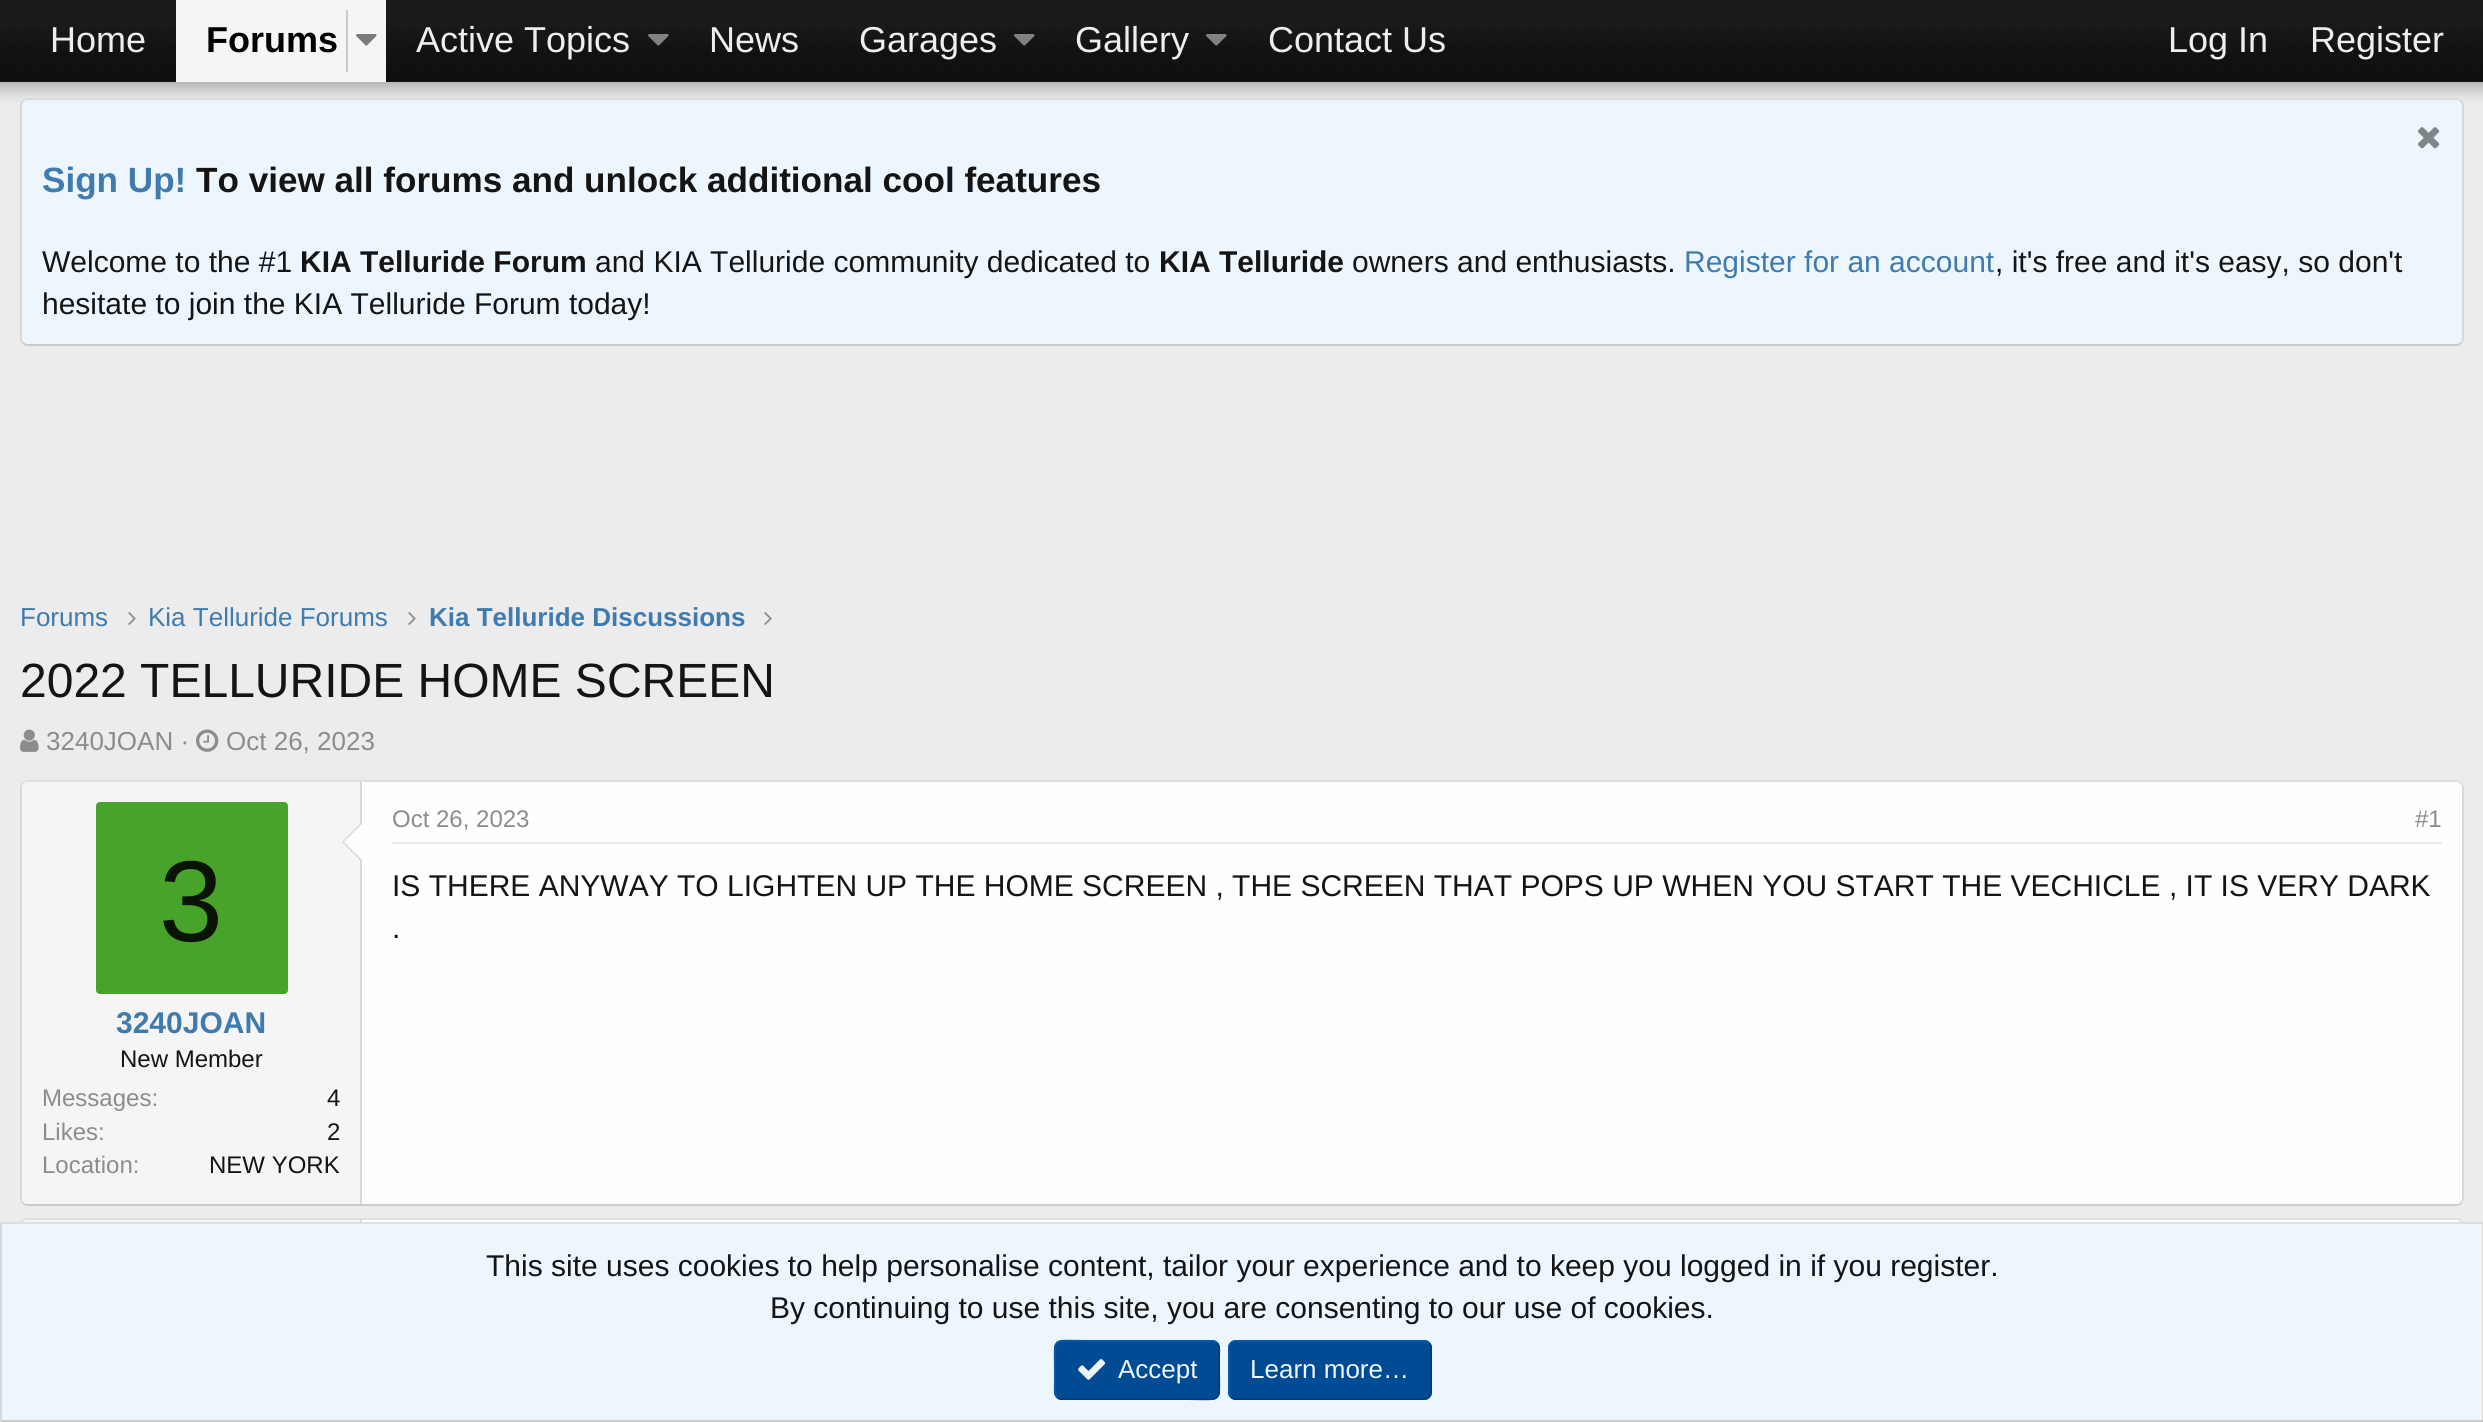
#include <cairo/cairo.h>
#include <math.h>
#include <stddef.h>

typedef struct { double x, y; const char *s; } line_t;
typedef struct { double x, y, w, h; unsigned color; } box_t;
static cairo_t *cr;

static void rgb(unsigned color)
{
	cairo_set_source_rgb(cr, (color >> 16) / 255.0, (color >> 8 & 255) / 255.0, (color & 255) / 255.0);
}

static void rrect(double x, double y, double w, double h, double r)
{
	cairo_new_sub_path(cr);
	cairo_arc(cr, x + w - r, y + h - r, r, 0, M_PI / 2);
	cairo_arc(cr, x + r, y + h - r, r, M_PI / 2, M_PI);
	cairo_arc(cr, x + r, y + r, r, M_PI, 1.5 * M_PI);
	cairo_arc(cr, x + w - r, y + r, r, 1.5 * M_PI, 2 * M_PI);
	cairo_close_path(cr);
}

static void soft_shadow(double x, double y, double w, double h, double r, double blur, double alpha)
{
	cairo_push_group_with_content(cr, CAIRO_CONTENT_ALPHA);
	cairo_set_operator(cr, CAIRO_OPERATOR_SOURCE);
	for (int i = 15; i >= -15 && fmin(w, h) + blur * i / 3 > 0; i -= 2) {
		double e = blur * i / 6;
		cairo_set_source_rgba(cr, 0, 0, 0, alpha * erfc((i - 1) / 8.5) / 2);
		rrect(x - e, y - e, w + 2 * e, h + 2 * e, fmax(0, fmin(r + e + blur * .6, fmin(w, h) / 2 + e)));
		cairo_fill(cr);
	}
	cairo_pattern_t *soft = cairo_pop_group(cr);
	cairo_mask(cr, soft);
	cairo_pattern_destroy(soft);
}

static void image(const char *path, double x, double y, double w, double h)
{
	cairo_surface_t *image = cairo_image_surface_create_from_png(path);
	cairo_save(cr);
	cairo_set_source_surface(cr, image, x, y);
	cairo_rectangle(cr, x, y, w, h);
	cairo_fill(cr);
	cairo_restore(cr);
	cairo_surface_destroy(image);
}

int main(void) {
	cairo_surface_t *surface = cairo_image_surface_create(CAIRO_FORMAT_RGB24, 2483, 1422);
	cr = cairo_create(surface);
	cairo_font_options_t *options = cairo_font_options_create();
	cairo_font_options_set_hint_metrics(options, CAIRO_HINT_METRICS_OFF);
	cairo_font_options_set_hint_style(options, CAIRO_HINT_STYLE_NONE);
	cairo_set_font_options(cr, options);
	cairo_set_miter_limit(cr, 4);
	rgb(0xececec);
	cairo_paint(cr);
	rgb(0xedf6fd);
	rrect(20, 98, 2444, 248, 8);
	cairo_fill(cr);
	cairo_new_path(cr);
	cairo_move_to(cr, 23, 101);
	cairo_curve_to(cr, 24.5, 99.5, 26, 99, 28, 99);
	cairo_line_to(cr, 2456, 99);
	cairo_curve_to(cr, 2458, 99, 2459.5, 99.5, 2461, 101);
	rgb(0xdfdfdf);
	cairo_stroke(cr);
	cairo_new_path(cr);
	cairo_move_to(cr, 2461, 101);
	cairo_curve_to(cr, 2462.5, 102.5, 2463, 104, 2463, 106);
	cairo_line_to(cr, 2463, 338);
	cairo_curve_to(cr, 2463, 340, 2462.5, 341.5, 2461, 343);
	rgb(0xd8d8d8);
	cairo_stroke(cr);
	cairo_new_path(cr);
	cairo_move_to(cr, 2461, 343);
	cairo_curve_to(cr, 2459.5, 344.5, 2458, 345, 2456, 345);
	cairo_line_to(cr, 28, 345);
	cairo_curve_to(cr, 26, 345, 24.5, 344.5, 23, 343);
	rgb(0xcbcbcb);
	cairo_stroke(cr);
	cairo_new_path(cr);
	cairo_move_to(cr, 23, 343);
	cairo_curve_to(cr, 21.5, 341.5, 21, 340, 21, 338);
	cairo_line_to(cr, 21, 106);
	cairo_curve_to(cr, 21, 104, 21.5, 102.5, 23, 101);
	rgb(0xd8d8d8);
	cairo_stroke(cr);
	rgb(0x000000);
	soft_shadow(-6, -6, 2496, 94, 0, 8, 0.3);
	image("img/1.png", 0, 0, 2483, 82);
	rgb(0xf5f5f5);
	cairo_rectangle(cr, 176, 0, 210, 82);
	cairo_fill(cr);
	rgb(0xcacaca);
	cairo_rectangle(cr, 346, 10, 2, 62);
	cairo_fill(cr);
	image("img/2.png", 356, 34, 21, 12);
	image("img/3.png", 648, 34, 21, 12);
	image("img/4.png", 1014, 34, 21, 12);
	image("img/5.png", 1206, 34, 21, 12);
	image("img/6.png", 2418, 127, 22, 22);
	image("img/7.png", 128, 612, 8, 13);
	image("img/7.png", 408, 612, 8, 13);
	image("img/7.png", 764, 612, 8, 13);
	image("img/8.png", 20, 729, 19, 23);
	image("img/9.png", 196, 729, 23, 23);
	rgb(0xfefefe);
	rrect(20, 780, 2444, 426, 8);
	cairo_fill(cr);
	cairo_new_path(cr);
	cairo_move_to(cr, 23, 783);
	cairo_curve_to(cr, 24.5, 781.5, 26, 781, 28, 781);
	cairo_line_to(cr, 2456, 781);
	cairo_curve_to(cr, 2458, 781, 2459.5, 781.5, 2461, 783);
	rgb(0xdfdfdf);
	cairo_stroke(cr);
	cairo_new_path(cr);
	cairo_move_to(cr, 2461, 783);
	cairo_curve_to(cr, 2462.5, 784.5, 2463, 786, 2463, 788);
	cairo_line_to(cr, 2463, 1198);
	cairo_curve_to(cr, 2463, 1200, 2462.5, 1201.5, 2461, 1203);
	rgb(0xd8d8d8);
	cairo_stroke(cr);
	cairo_new_path(cr);
	cairo_move_to(cr, 2461, 1203);
	cairo_curve_to(cr, 2459.5, 1204.5, 2458, 1205, 2456, 1205);
	cairo_line_to(cr, 28, 1205);
	cairo_curve_to(cr, 26, 1205, 24.5, 1204.5, 23, 1203);
	rgb(0xcbcbcb);
	cairo_stroke(cr);
	cairo_new_path(cr);
	cairo_move_to(cr, 23, 1203);
	cairo_curve_to(cr, 21.5, 1201.5, 21, 1200, 21, 1198);
	cairo_line_to(cr, 21, 788);
	cairo_curve_to(cr, 21, 786, 21.5, 784.5, 23, 783);
	rgb(0xd8d8d8);
	cairo_stroke(cr);
	rgb(0xf5f5f5);
	cairo_new_path(cr);
	cairo_move_to(cr, 28, 782);
	cairo_line_to(cr, 362, 782);
	cairo_line_to(cr, 362, 1204);
	cairo_line_to(cr, 28, 1204);
	cairo_curve_to(cr, 24.5, 1204, 22, 1201.5, 22, 1198);
	cairo_line_to(cr, 22, 788);
	cairo_curve_to(cr, 22, 784.5, 24.5, 782, 28, 782);
	cairo_close_path(cr);
	cairo_fill(cr);
	rgb(0xd8d8d8);
	cairo_rectangle(cr, 360, 782, 2, 422);
	cairo_fill(cr);
	cairo_new_path(cr);
	cairo_move_to(cr, 362, 822);
	cairo_line_to(cr, 362, 862);
	cairo_line_to(cr, 342, 842);
	cairo_close_path(cr);
	cairo_fill(cr);
	rgb(0xfefefe);
	cairo_new_path(cr);
	cairo_move_to(cr, 362, 824);
	cairo_line_to(cr, 362, 860);
	cairo_line_to(cr, 344, 842);
	cairo_close_path(cr);
	cairo_fill(cr);
	rgb(0x47a329);
	rrect(96, 802, 192, 192, 4);
	cairo_fill(cr);
	rgb(0xe7e7e7);
	cairo_rectangle(cr, 392, 842, 2050, 2);
	cairo_fill(cr);
	rgb(0xfefefe);
	rrect(20, 1218, 2444, 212, 8);
	cairo_fill(cr);
	cairo_new_path(cr);
	cairo_move_to(cr, 23, 1221);
	cairo_curve_to(cr, 24.5, 1219.5, 26, 1219, 28, 1219);
	cairo_line_to(cr, 2456, 1219);
	cairo_curve_to(cr, 2458, 1219, 2459.5, 1219.5, 2461, 1221);
	rgb(0xdfdfdf);
	cairo_stroke(cr);
	cairo_new_path(cr);
	cairo_move_to(cr, 2461, 1221);
	cairo_curve_to(cr, 2462.5, 1222.5, 2463, 1224, 2463, 1226);
	cairo_line_to(cr, 2463, 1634);
	cairo_curve_to(cr, 2463, 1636, 2462.5, 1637.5, 2461, 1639);
	rgb(0xd8d8d8);
	cairo_stroke(cr);
	cairo_new_path(cr);
	cairo_move_to(cr, 23, 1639);
	cairo_curve_to(cr, 21.5, 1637.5, 21, 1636, 21, 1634);
	cairo_line_to(cr, 21, 1226);
	cairo_curve_to(cr, 21, 1224, 21.5, 1222.5, 23, 1221);
	cairo_stroke(cr);
	rgb(0xf5f5f5);
	cairo_new_path(cr);
	cairo_move_to(cr, 28, 1220);
	cairo_line_to(cr, 362, 1220);
	cairo_line_to(cr, 362, 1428);
	cairo_line_to(cr, 28, 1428);
	cairo_curve_to(cr, 24.5, 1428, 22, 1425.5, 22, 1422);
	cairo_line_to(cr, 22, 1226);
	cairo_curve_to(cr, 22, 1222.5, 24.5, 1220, 28, 1220);
	cairo_close_path(cr);
	cairo_fill(cr);
	{
		static const box_t items[] = {
			{360, 1220, 2, 2, 0xd8d8d8},
			{2, 1224, 2480, 196, 0xedf6fd},
			{0, 1222, 2483, 2, 0xdfdfdf},
			{2482, 1222, 1, 200, 0xd8d8d8},
			{0, 1420, 2483, 2, 0xcbcbcb},
			{0, 1222, 2, 200, 0xd8d8d8},
		};
		for (size_t i = 0; i < sizeof items / sizeof *items; i++) {
			rgb(items[i].color);
			cairo_rectangle(cr, items[i].x, items[i].y, items[i].w, items[i].h);
			cairo_fill(cr);
		}
	}
	rgb(0x004b94);
	rrect(1054, 1340, 166, 60, 8);
	cairo_fill(cr);
	cairo_new_path(cr);
	cairo_move_to(cr, 1217, 1343);
	cairo_curve_to(cr, 1220, 1346, 1219, 1351.5, 1219, 1355.5);
	cairo_line_to(cr, 1219, 1370);
	cairo_curve_to(cr, 1219, 1404, 1223.5, 1399, 1187, 1399);
	cairo_line_to(cr, 1062, 1399);
	cairo_curve_to(cr, 1060, 1399, 1058.5, 1398.5, 1057, 1397);
	rgb(0x003e7b);
	cairo_stroke(cr);
	cairo_new_path(cr);
	cairo_move_to(cr, 1057, 1397);
	cairo_curve_to(cr, 1054, 1394, 1055, 1388.5, 1055, 1384.5);
	cairo_line_to(cr, 1055, 1370);
	cairo_curve_to(cr, 1055, 1336, 1050.5, 1341, 1087, 1341);
	cairo_line_to(cr, 1212, 1341);
	cairo_curve_to(cr, 1214, 1341, 1215.5, 1341.5, 1217, 1343);
	rgb(0x0058ae);
	cairo_stroke(cr);
	image("img/10.png", 1078, 1359, 28, 21);
	rgb(0x004b94);
	rrect(1228, 1340, 204, 60, 8);
	cairo_fill(cr);
	cairo_new_path(cr);
	cairo_move_to(cr, 1429, 1343);
	cairo_curve_to(cr, 1430.5, 1344.5, 1431, 1346, 1431, 1348);
	cairo_line_to(cr, 1431, 1392);
	cairo_curve_to(cr, 1431, 1394, 1430.5, 1395.5, 1429, 1397);
	cairo_curve_to(cr, 1427.5, 1398.5, 1426, 1399, 1424, 1399);
	cairo_line_to(cr, 1236, 1399);
	cairo_curve_to(cr, 1234, 1399, 1232.5, 1398.5, 1231, 1397);
	rgb(0x003e7b);
	cairo_stroke(cr);
	cairo_new_path(cr);
	cairo_move_to(cr, 1231, 1397);
	cairo_curve_to(cr, 1229.5, 1395.5, 1229, 1394, 1229, 1392);
	cairo_line_to(cr, 1229, 1348);
	cairo_curve_to(cr, 1229, 1346, 1229.5, 1344.5, 1231, 1343);
	cairo_curve_to(cr, 1232.5, 1341.5, 1234, 1341, 1236, 1341);
	cairo_line_to(cr, 1424, 1341);
	cairo_curve_to(cr, 1426, 1341, 1427.5, 1341.5, 1429, 1343);
	rgb(0x0058ae);
	cairo_stroke(cr);
	cairo_select_font_face(cr, "Liberation Sans", CAIRO_FONT_SLANT_NORMAL, CAIRO_FONT_WEIGHT_NORMAL);
	cairo_set_font_size(cr, 36);
	rgb(0xeeeeee);
	cairo_move_to(cr, 50, 52);
	cairo_show_text(cr, "Home");
	cairo_select_font_face(cr, "Liberation Sans", CAIRO_FONT_SLANT_NORMAL, CAIRO_FONT_WEIGHT_BOLD);
	rgb(0x000000);
	cairo_move_to(cr, 206, 52);
	cairo_show_text(cr, "Forums");
	cairo_select_font_face(cr, "Liberation Sans", CAIRO_FONT_SLANT_NORMAL, CAIRO_FONT_WEIGHT_NORMAL);
	rgb(0xeeeeee);
	{
		static const line_t items[] = {
			{416, 52, "Active Topics"},
			{709, 52, "News"},
			{859, 52, "Garages"},
			{1075, 52, "Gallery"},
			{1268, 52, "Contact Us"},
			{2168, 52, "Log In"},
			{2310, 52, "Register"},
		};
		for (size_t i = 0; i < sizeof items / sizeof *items; i++) {
			cairo_move_to(cr, items[i].x, items[i].y);
			cairo_show_text(cr, items[i].s);
		}
	}
	cairo_select_font_face(cr, "Liberation Sans", CAIRO_FONT_SLANT_NORMAL, CAIRO_FONT_WEIGHT_BOLD);
	cairo_set_font_size(cr, 35.1);
	rgb(0x3f7bae);
	cairo_move_to(cr, 42, 192);
	cairo_show_text(cr, "Sign Up!");
	rgb(0x141414);
	cairo_move_to(cr, 196, 192);
	cairo_show_text(cr, "To view all forums and unlock additional cool features");
	cairo_select_font_face(cr, "Liberation Sans", CAIRO_FONT_SLANT_NORMAL, CAIRO_FONT_WEIGHT_NORMAL);
	cairo_set_font_size(cr, 30);
	cairo_move_to(cr, 42, 272);
	cairo_show_text(cr, "Welcome to the #1");
	cairo_select_font_face(cr, "Liberation Sans", CAIRO_FONT_SLANT_NORMAL, CAIRO_FONT_WEIGHT_BOLD);
	cairo_move_to(cr, 300, 272);
	cairo_show_text(cr, "KIA Telluride Forum");
	cairo_select_font_face(cr, "Liberation Sans", CAIRO_FONT_SLANT_NORMAL, CAIRO_FONT_WEIGHT_NORMAL);
	cairo_move_to(cr, 595, 272);
	cairo_show_text(cr, "and KIA Telluride community dedicated to");
	cairo_select_font_face(cr, "Liberation Sans", CAIRO_FONT_SLANT_NORMAL, CAIRO_FONT_WEIGHT_BOLD);
	cairo_move_to(cr, 1159, 272);
	cairo_show_text(cr, "KIA Telluride");
	cairo_select_font_face(cr, "Liberation Sans", CAIRO_FONT_SLANT_NORMAL, CAIRO_FONT_WEIGHT_NORMAL);
	cairo_move_to(cr, 1352, 272);
	cairo_show_text(cr, "owners and enthusiasts.");
	rgb(0x3f7bae);
	cairo_move_to(cr, 1684, 272);
	cairo_show_text(cr, "Register for an account");
	rgb(0x141414);
	cairo_move_to(cr, 1995, 272);
	cairo_show_text(cr, ", it's free and it's easy, so don't");
	cairo_move_to(cr, 42, 314);
	cairo_show_text(cr, "hesitate to join the KIA Telluride Forum today!");
	cairo_set_font_size(cr, 26);
	rgb(0x3f7bae);
	cairo_move_to(cr, 20, 626);
	cairo_show_text(cr, "Forums");
	cairo_move_to(cr, 148, 626);
	cairo_show_text(cr, "Kia Telluride Forums");
	cairo_select_font_face(cr, "Liberation Sans", CAIRO_FONT_SLANT_NORMAL, CAIRO_FONT_WEIGHT_BOLD);
	cairo_move_to(cr, 429, 626);
	cairo_show_text(cr, "Kia Telluride Discussions");
	cairo_select_font_face(cr, "Liberation Sans", CAIRO_FONT_SLANT_NORMAL, CAIRO_FONT_WEIGHT_NORMAL);
	cairo_set_font_size(cr, 48);
	rgb(0x141414);
	cairo_move_to(cr, 20, 697);
	cairo_show_text(cr, "2022 TELLURIDE HOME SCREEN");
	cairo_set_font_size(cr, 26);
	rgb(0x8c8c8c);
	cairo_move_to(cr, 46, 750);
	cairo_show_text(cr, "3240JOAN ·");
	cairo_move_to(cr, 226, 750);
	cairo_show_text(cr, "Oct 26, 2023");
	cairo_set_font_size(cr, 115);
	rgb(0x091405);
	cairo_move_to(cr, 159, 941);
	cairo_show_text(cr, "3");
	cairo_select_font_face(cr, "Liberation Sans", CAIRO_FONT_SLANT_NORMAL, CAIRO_FONT_WEIGHT_BOLD);
	cairo_set_font_size(cr, 30);
	rgb(0x3f7bae);
	cairo_move_to(cr, 116, 1033);
	cairo_show_text(cr, "3240JOAN");
	cairo_select_font_face(cr, "Liberation Sans", CAIRO_FONT_SLANT_NORMAL, CAIRO_FONT_WEIGHT_NORMAL);
	cairo_set_font_size(cr, 24);
	rgb(0x141414);
	cairo_move_to(cr, 120, 1067);
	cairo_show_text(cr, "New Member");
	rgb(0x8c8c8c);
	cairo_move_to(cr, 42, 1106);
	cairo_show_text(cr, "Messages:");
	rgb(0x141414);
	cairo_move_to(cr, 327, 1106);
	cairo_show_text(cr, "4");
	rgb(0x8c8c8c);
	cairo_move_to(cr, 42, 1140);
	cairo_show_text(cr, "Likes:");
	rgb(0x141414);
	cairo_move_to(cr, 327, 1140);
	cairo_show_text(cr, "2");
	rgb(0x8c8c8c);
	cairo_move_to(cr, 42, 1173);
	cairo_show_text(cr, "Location:");
	rgb(0x141414);
	cairo_move_to(cr, 209, 1173);
	cairo_show_text(cr, "NEW YORK");
	rgb(0x8c8c8c);
	cairo_move_to(cr, 392, 827);
	cairo_show_text(cr, "Oct 26, 2023");
	cairo_move_to(cr, 2415, 827);
	cairo_show_text(cr, "#1");
	cairo_set_font_size(cr, 30);
	rgb(0x141414);
	{
		static const line_t items[] = {
			{392, 896, "IS THERE ANYWAY TO LIGHTEN UP THE HOME SCREEN , THE SCREEN THAT POPS UP WHEN YOU START THE VECHICLE , IT IS VERY DARK"},
			{392, 938, "."},
			{486, 1276, "This site uses cookies to help personalise content, tailor your experience and to keep you logged in if you register."},
			{770, 1318, "By continuing to use this site, you are consenting to our use of cookies."},
		};
		for (size_t i = 0; i < sizeof items / sizeof *items; i++) {
			cairo_move_to(cr, items[i].x, items[i].y);
			cairo_show_text(cr, items[i].s);
		}
	}
	cairo_set_font_size(cr, 26);
	rgb(0xedf6fd);
	cairo_move_to(cr, 1118, 1378);
	cairo_show_text(cr, "Accept");
	cairo_move_to(cr, 1250, 1378);
	cairo_show_text(cr, "Learn more…");
	cairo_surface_write_to_png(surface, "page.png");
	cairo_font_options_destroy(options);
	cairo_destroy(cr);
	cairo_surface_destroy(surface);
	return 0;
}
